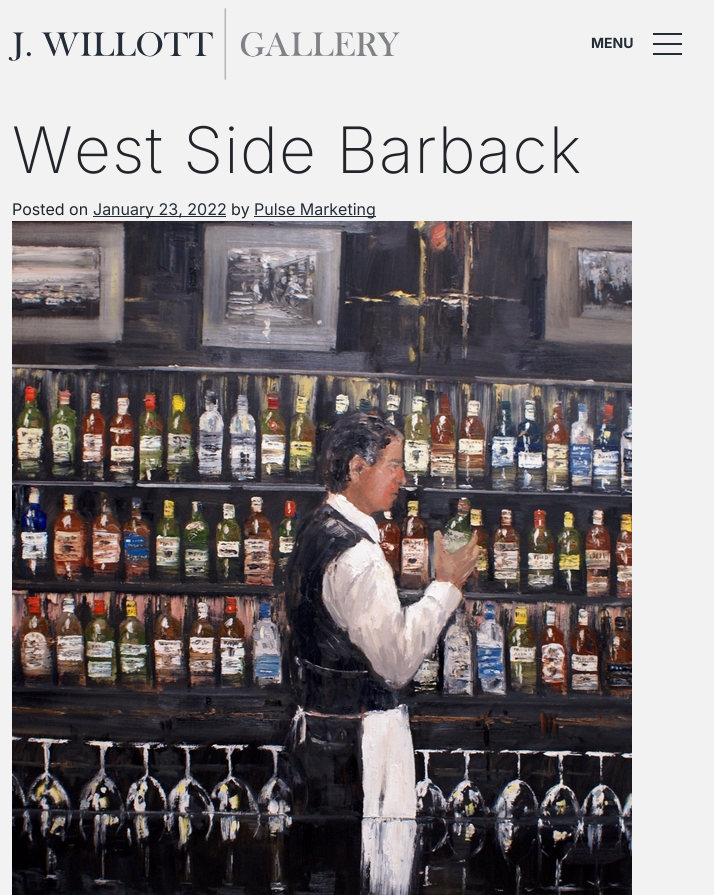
#include <cairo/cairo.h>
#include <math.h>
#include <stddef.h>

typedef struct { double x, y, w, h; unsigned color; } box_t;
static cairo_t *cr;

static void rgb(unsigned color)
{
	cairo_set_source_rgb(cr, (color >> 16) / 255.0, (color >> 8 & 255) / 255.0, (color & 255) / 255.0);
}

static void tracked(double x, double y, const char *s, double letter, double word)
{
	cairo_move_to(cr, x, y);
	while (*s) {
		char ch[5] = {0};
		int n = 0;
		do ch[n++] = *s++; while ((*s & 0xC0) == 0x80);
		cairo_show_text(cr, ch);
		cairo_rel_move_to(cr, letter + word * (*ch == ' '), 0);
	}
}

static void image(const char *path, double x, double y, double w, double h)
{
	cairo_surface_t *image = cairo_image_surface_create_from_png(path);
	cairo_save(cr);
	cairo_set_source_surface(cr, image, x, y);
	cairo_rectangle(cr, x, y, w, h);
	cairo_fill(cr);
	cairo_restore(cr);
	cairo_surface_destroy(image);
}

int main(void) {
	cairo_surface_t *surface = cairo_image_surface_create(CAIRO_FORMAT_RGB24, 714, 895);
	cr = cairo_create(surface);
	cairo_font_options_t *options = cairo_font_options_create();
	cairo_font_options_set_hint_metrics(options, CAIRO_HINT_METRICS_OFF);
	cairo_font_options_set_hint_style(options, CAIRO_HINT_STYLE_NONE);
	cairo_set_font_options(cr, options);
	cairo_set_miter_limit(cr, 4);
	rgb(0xf2f2f2);
	cairo_paint(cr);
	image("img/1.png", 8, 8, 393, 72);
	{
		static const box_t items[] = {
			{653, 33, 29, 2, 0x242d37},
			{653, 43, 29, 2, 0x242d37},
			{653, 53, 29, 2, 0x242d37},
			{93, 216, 133, 1, 0x242d37},
			{254, 216, 122, 1, 0x242d37},
		};
		for (size_t i = 0; i < sizeof items / sizeof *items; i++) {
			rgb(items[i].color);
			cairo_rectangle(cr, items[i].x, items[i].y, items[i].w, items[i].h);
			cairo_fill(cr);
		}
	}
	image("img/2.png", 12, 221, 620, 674);
	cairo_select_font_face(cr, "Inter", CAIRO_FONT_SLANT_NORMAL, CAIRO_FONT_WEIGHT_BOLD);
	cairo_set_font_size(cr, 14);
	cairo_move_to(cr, 591, 48);
	cairo_show_text(cr, "MENU");
	cairo_select_font_face(cr, "Inter ExtraLight", CAIRO_FONT_SLANT_NORMAL, CAIRO_FONT_WEIGHT_NORMAL);
	cairo_set_font_size(cr, 64);
	rgb(0x212529);
	tracked(12, 173, "West Side Barback", 1.25, 0);
	cairo_select_font_face(cr, "Inter", CAIRO_FONT_SLANT_NORMAL, CAIRO_FONT_WEIGHT_NORMAL);
	cairo_set_font_size(cr, 16);
	cairo_move_to(cr, 12, 215);
	cairo_show_text(cr, "Posted on");
	rgb(0x242d37);
	cairo_move_to(cr, 93, 215);
	cairo_show_text(cr, "January 23, 2022");
	rgb(0x212529);
	cairo_move_to(cr, 231, 215);
	cairo_show_text(cr, "by");
	rgb(0x242d37);
	cairo_move_to(cr, 254, 215);
	cairo_show_text(cr, "Pulse Marketing");
	cairo_surface_write_to_png(surface, "page.png");
	cairo_font_options_destroy(options);
	cairo_destroy(cr);
	cairo_surface_destroy(surface);
	return 0;
}
